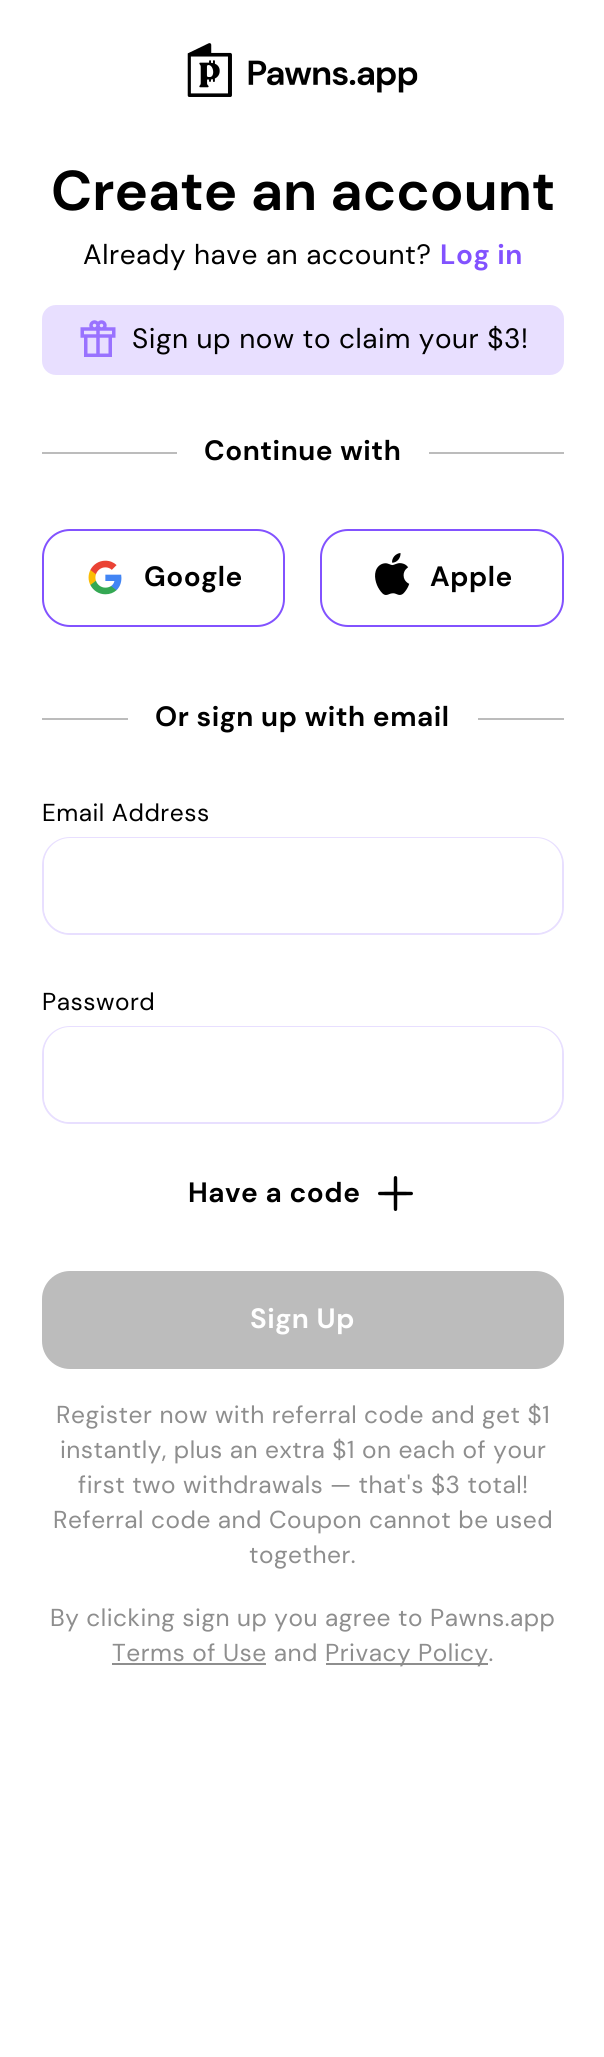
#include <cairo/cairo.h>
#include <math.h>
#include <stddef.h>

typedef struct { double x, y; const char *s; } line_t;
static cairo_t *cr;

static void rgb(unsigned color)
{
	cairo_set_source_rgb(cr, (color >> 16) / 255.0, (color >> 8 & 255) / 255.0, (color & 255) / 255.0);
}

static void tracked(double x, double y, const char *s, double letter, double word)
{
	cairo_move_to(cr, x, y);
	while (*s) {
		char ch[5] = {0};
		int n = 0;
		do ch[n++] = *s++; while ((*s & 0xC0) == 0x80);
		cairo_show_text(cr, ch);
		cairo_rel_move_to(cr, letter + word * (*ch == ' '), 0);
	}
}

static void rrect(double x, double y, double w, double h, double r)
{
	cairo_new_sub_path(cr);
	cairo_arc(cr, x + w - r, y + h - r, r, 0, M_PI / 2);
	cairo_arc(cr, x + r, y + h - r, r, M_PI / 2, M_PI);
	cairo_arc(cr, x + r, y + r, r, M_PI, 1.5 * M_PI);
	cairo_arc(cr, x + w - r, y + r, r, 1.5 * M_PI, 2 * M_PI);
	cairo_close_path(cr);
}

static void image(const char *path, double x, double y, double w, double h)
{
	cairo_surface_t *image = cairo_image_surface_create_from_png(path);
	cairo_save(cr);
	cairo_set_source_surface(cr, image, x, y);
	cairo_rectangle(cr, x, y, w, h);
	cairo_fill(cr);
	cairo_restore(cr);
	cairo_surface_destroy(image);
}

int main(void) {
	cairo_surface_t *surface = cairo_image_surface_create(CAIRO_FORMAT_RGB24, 604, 2057);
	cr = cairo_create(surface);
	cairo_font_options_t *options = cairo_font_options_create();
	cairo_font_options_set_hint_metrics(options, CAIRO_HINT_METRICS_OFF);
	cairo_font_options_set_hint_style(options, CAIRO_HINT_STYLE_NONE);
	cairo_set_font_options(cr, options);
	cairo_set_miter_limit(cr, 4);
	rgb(0xffffff);
	cairo_paint(cr);
	image("img/1.png", 187, 43, 231, 54);
	rgb(0xe8dfff);
	rrect(42, 305, 522, 70, 14);
	cairo_fill(cr);
	image("img/2.png", 80, 320, 36, 37);
	rgb(0xbcbcbc);
	cairo_rectangle(cr, 42, 452, 135, 2);
	cairo_fill(cr);
	cairo_rectangle(cr, 429, 452, 135, 2);
	cairo_fill(cr);
	rrect(43, 530, 241, 96, 27);
	rgb(0x8252ff);
	cairo_stroke(cr);
	image("img/3.png", 88, 560, 34, 35);
	rrect(321, 530, 242, 96, 27);
	cairo_stroke(cr);
	image("img/4.png", 375, 553, 35, 42);
	rgb(0xbcbcbc);
	cairo_rectangle(cr, 42, 718, 86, 2);
	cairo_fill(cr);
	cairo_rectangle(cr, 478, 718, 86, 2);
	cairo_fill(cr);
	rrect(43, 838, 520, 96, 27);
	rgb(0xe8dfff);
	cairo_stroke(cr);
	rgb(0xffffff);
	rrect(44, 838, 518, 95, 26);
	cairo_fill(cr);
	rrect(43, 1027, 520, 96, 27);
	rgb(0xe8dfff);
	cairo_stroke(cr);
	rgb(0xffffff);
	rrect(44, 1027, 518, 95, 26);
	cairo_fill(cr);
	image("img/5.png", 378, 1176, 35, 35);
	rgb(0xbcbcbc);
	rrect(42, 1271, 522, 98, 28);
	cairo_fill(cr);
	rgb(0x8e8e8e);
	cairo_rectangle(cr, 112, 1663, 154, 2);
	cairo_fill(cr);
	cairo_rectangle(cr, 326, 1663, 162, 2);
	cairo_fill(cr);
	cairo_select_font_face(cr, "DM Sans", CAIRO_FONT_SLANT_NORMAL, CAIRO_FONT_WEIGHT_BOLD);
	cairo_set_font_size(cr, 56);
	rgb(0x000000);
	cairo_move_to(cr, 51, 210);
	cairo_show_text(cr, "Create an account");
	cairo_select_font_face(cr, "DM Sans", CAIRO_FONT_SLANT_NORMAL, CAIRO_FONT_WEIGHT_NORMAL);
	cairo_set_font_size(cr, 28);
	tracked(83, 264, "Already have an account?", 0.55, 0);
	cairo_select_font_face(cr, "DM Sans", CAIRO_FONT_SLANT_NORMAL, CAIRO_FONT_WEIGHT_BOLD);
	rgb(0x8252ff);
	tracked(440, 264, "Log in", 0.55, 0);
	cairo_select_font_face(cr, "DM Sans", CAIRO_FONT_SLANT_NORMAL, CAIRO_FONT_WEIGHT_NORMAL);
	rgb(0x000000);
	tracked(132, 348, "Sign up now to claim your $3!", 0.55, 0);
	cairo_select_font_face(cr, "DM Sans", CAIRO_FONT_SLANT_NORMAL, CAIRO_FONT_WEIGHT_BOLD);
	{
		static const line_t items[] = {
			{204, 460, "Continue with"},
			{144, 586, "Google"},
			{430, 586, "Apple"},
			{155, 726, "Or sign up with email"},
		};
		for (size_t i = 0; i < sizeof items / sizeof *items; i++) {
			tracked(items[i].x, items[i].y, items[i].s, 0.55, 0);
		}
	}
	cairo_select_font_face(cr, "DM Sans", CAIRO_FONT_SLANT_NORMAL, CAIRO_FONT_WEIGHT_NORMAL);
	cairo_set_font_size(cr, 24.5);
	tracked(42, 821, "Email Address", 0.5, 0);
	tracked(42, 1010, "Password", 0.5, 0);
	cairo_select_font_face(cr, "DM Sans", CAIRO_FONT_SLANT_NORMAL, CAIRO_FONT_WEIGHT_BOLD);
	cairo_set_font_size(cr, 28);
	tracked(188, 1202, "Have a code", 0.55, 0);
	rgb(0xffffff);
	tracked(250, 1328, "Sign Up", 0.55, 0);
	cairo_select_font_face(cr, "DM Sans", CAIRO_FONT_SLANT_NORMAL, CAIRO_FONT_WEIGHT_NORMAL);
	cairo_set_font_size(cr, 24.5);
	rgb(0x8e8e8e);
	{
		static const line_t items[] = {
			{56, 1423, "Register now with referral code and get $1"},
			{60, 1458, "instantly, plus an extra $1 on each of your"},
			{78, 1493, "first two withdrawals — that's $3 total!"},
			{53, 1528, "Referral code and Coupon cannot be used"},
			{249, 1563, "together."},
			{50, 1626, "By clicking sign up you agree to Pawns.app"},
			{112, 1661, "Terms of Use and"},
			{325, 1661, "Privacy Policy."},
		};
		for (size_t i = 0; i < sizeof items / sizeof *items; i++) {
			tracked(items[i].x, items[i].y, items[i].s, 0.5, 0);
		}
	}
	cairo_surface_write_to_png(surface, "page.png");
	cairo_font_options_destroy(options);
	cairo_destroy(cr);
	cairo_surface_destroy(surface);
	return 0;
}
